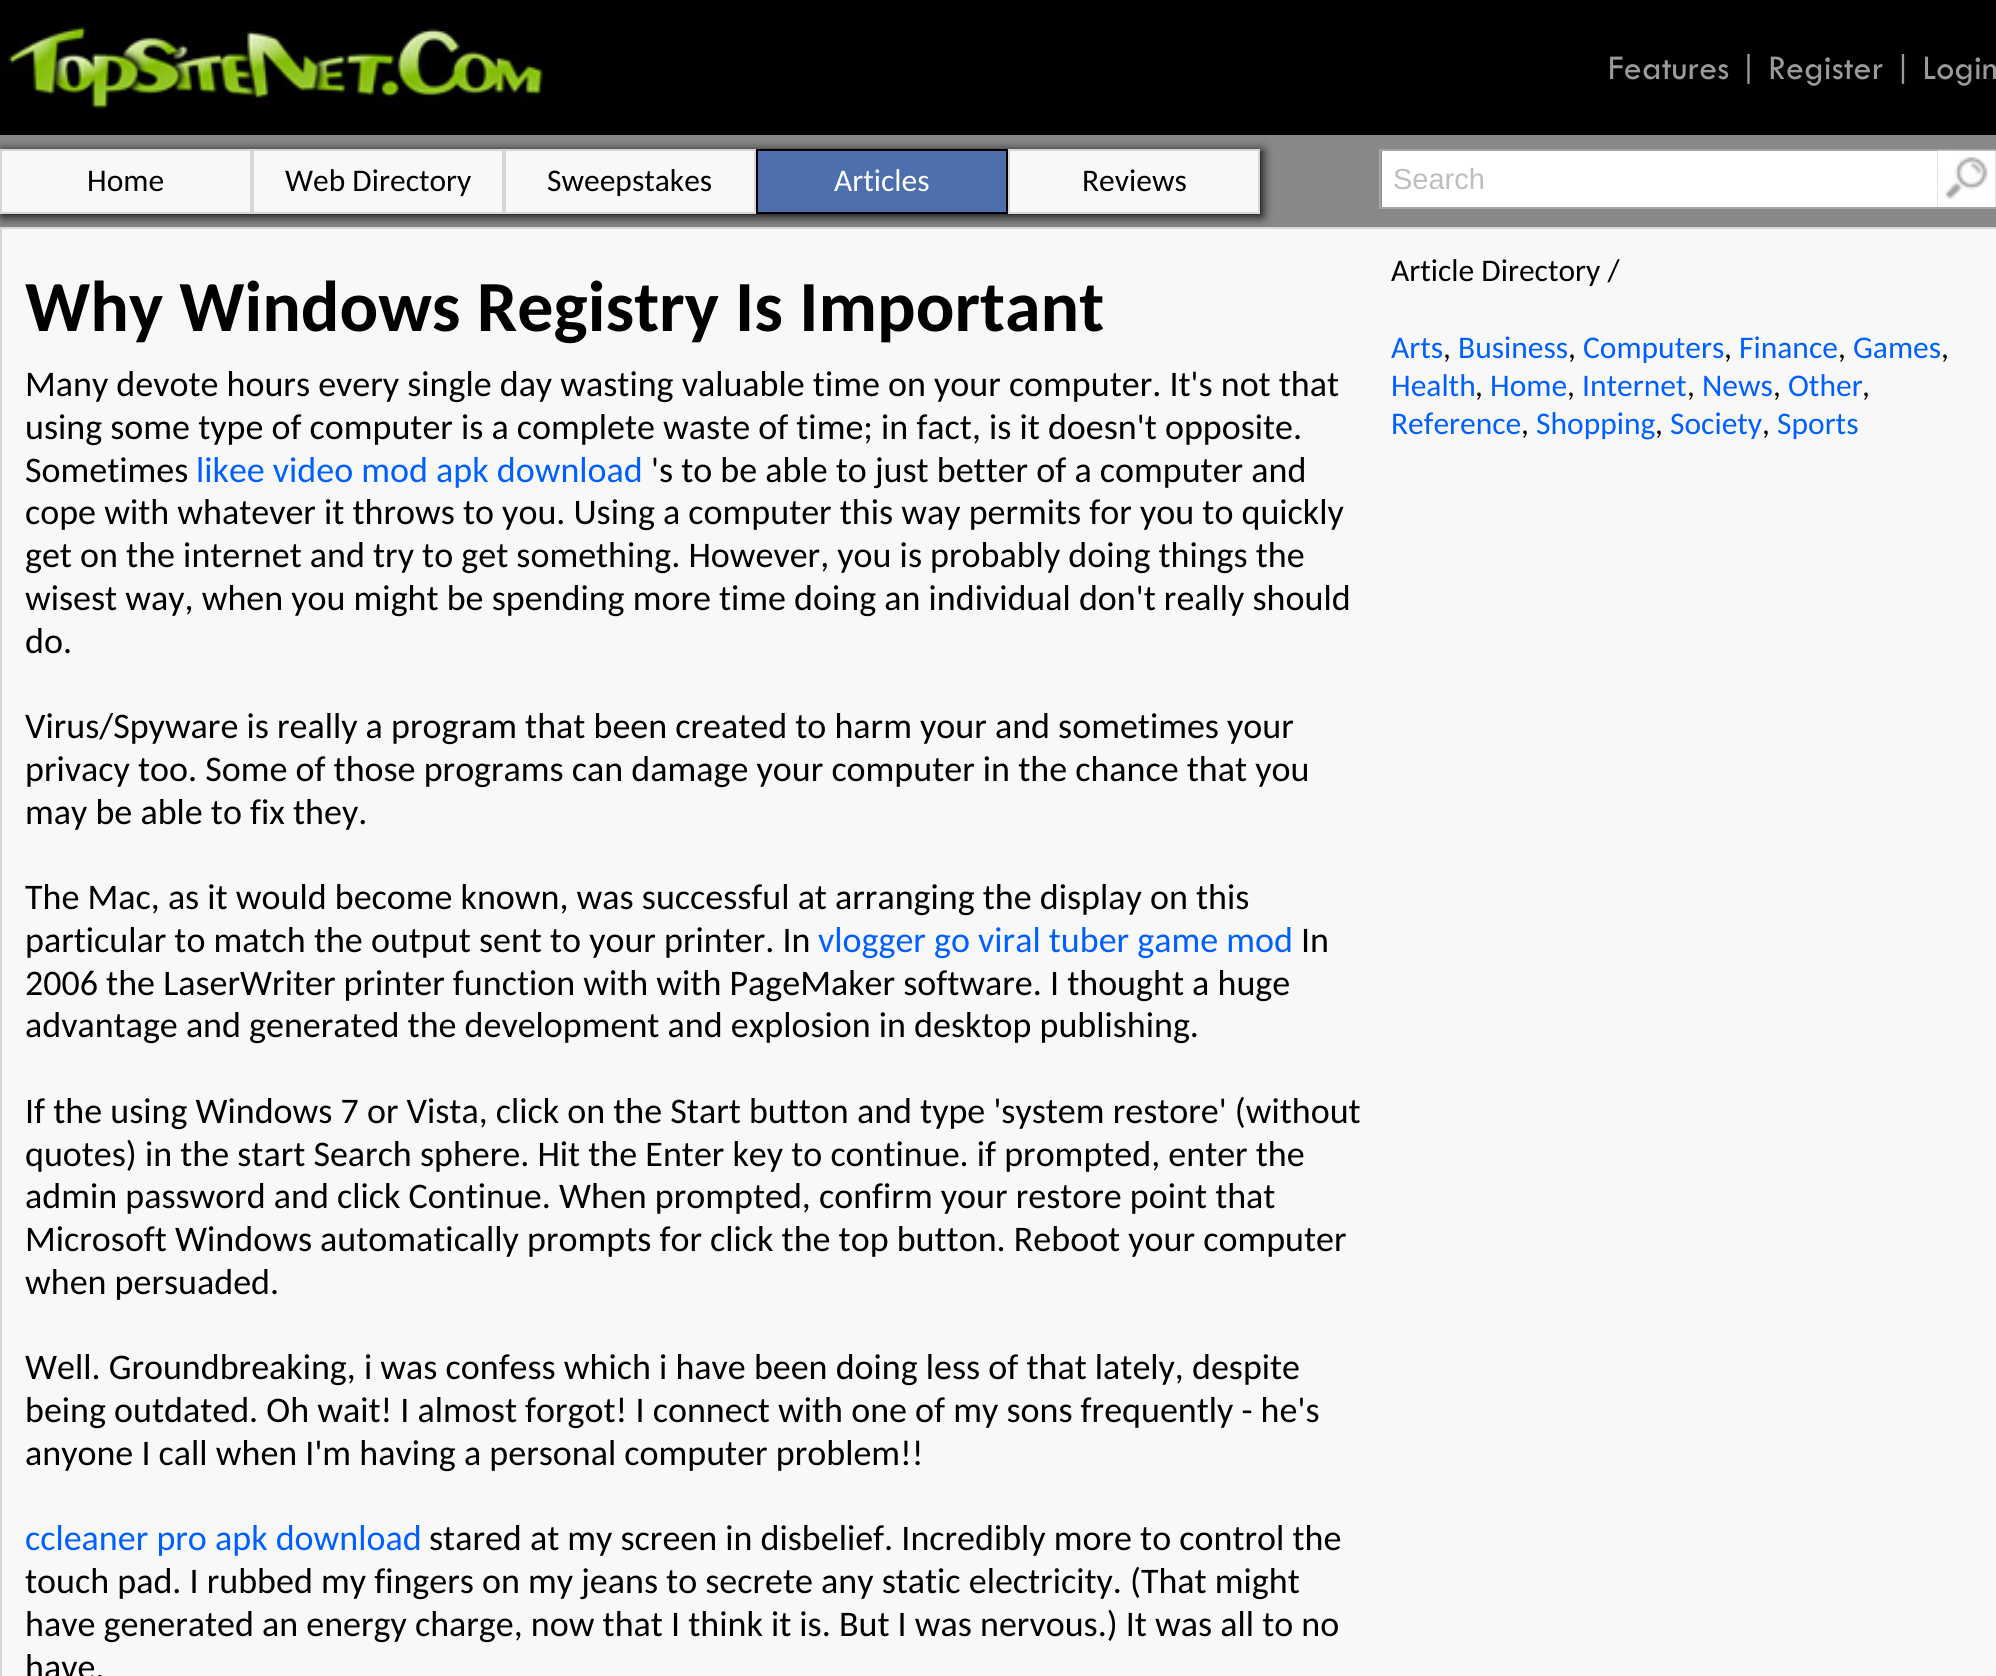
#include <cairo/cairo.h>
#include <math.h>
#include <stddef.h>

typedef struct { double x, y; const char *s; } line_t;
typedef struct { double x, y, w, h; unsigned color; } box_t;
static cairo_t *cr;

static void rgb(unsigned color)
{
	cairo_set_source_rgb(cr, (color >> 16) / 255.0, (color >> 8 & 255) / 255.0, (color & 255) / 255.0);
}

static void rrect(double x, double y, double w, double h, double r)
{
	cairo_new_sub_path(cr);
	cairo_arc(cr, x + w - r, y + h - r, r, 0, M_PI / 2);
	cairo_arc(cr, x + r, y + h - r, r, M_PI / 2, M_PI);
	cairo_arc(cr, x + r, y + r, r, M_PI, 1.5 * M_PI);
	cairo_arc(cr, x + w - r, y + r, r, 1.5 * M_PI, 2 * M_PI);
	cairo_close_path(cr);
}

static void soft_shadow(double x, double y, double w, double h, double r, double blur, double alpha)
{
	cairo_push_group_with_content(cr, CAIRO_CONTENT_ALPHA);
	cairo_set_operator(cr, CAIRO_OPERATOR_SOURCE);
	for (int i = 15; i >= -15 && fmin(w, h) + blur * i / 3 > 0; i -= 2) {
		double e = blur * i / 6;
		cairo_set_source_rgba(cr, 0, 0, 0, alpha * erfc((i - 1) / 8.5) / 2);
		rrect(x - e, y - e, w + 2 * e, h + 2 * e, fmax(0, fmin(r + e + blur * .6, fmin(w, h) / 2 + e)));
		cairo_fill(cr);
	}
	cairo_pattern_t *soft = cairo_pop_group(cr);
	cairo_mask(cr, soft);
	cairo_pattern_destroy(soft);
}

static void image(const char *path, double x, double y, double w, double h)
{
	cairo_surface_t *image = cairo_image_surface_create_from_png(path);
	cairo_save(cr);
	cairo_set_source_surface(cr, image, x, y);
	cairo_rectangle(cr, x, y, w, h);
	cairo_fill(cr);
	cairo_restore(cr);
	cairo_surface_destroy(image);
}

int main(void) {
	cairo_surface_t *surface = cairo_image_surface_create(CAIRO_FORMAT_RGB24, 1996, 1676);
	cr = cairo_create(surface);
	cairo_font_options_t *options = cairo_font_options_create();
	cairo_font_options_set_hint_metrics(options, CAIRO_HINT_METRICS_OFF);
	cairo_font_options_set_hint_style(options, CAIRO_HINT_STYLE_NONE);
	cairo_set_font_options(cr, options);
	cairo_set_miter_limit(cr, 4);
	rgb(0x000000);
	cairo_paint(cr);
	image("img/1.png", 0, 18, 551, 91);
	rgb(0x888888);
	cairo_rectangle(cr, 0, 135, 1996, 92);
	cairo_fill(cr);
	rgb(0x000000);
	soft_shadow(2, 151, 1260, 65, 0, 5.5, 1);
	rgb(0xf8f8f8);
	cairo_rectangle(cr, 1, 150, 250, 63);
	cairo_fill_preserve(cr);
	rgb(0xd7d7d7);
	cairo_stroke(cr);
	rgb(0xf8f8f8);
	cairo_rectangle(cr, 253, 150, 250, 63);
	cairo_fill_preserve(cr);
	rgb(0xd7d7d7);
	cairo_stroke(cr);
	rgb(0xf8f8f8);
	cairo_rectangle(cr, 505, 150, 250, 63);
	cairo_fill_preserve(cr);
	rgb(0xd7d7d7);
	cairo_stroke(cr);
	rgb(0x4d6fad);
	cairo_rectangle(cr, 757, 150, 250, 63);
	cairo_fill_preserve(cr);
	rgb(0x000000);
	cairo_stroke(cr);
	rgb(0xf8f8f8);
	cairo_rectangle(cr, 1009, 150, 250, 63);
	cairo_fill_preserve(cr);
	rgb(0xd7d7d7);
	cairo_stroke(cr);
	{
		static const box_t items[] = {
			{1382, 151, 555, 56, 0xffffff},
			{1379, 149, 617, 2, 0xa5a5a5},
			{1379, 207, 617, 2, 0xa5a5a5},
			{1379, 149, 2, 60, 0xa5a5a5},
		};
		for (size_t i = 0; i < sizeof items / sizeof *items; i++) {
			rgb(items[i].color);
			cairo_rectangle(cr, items[i].x, items[i].y, items[i].w, items[i].h);
			cairo_fill(cr);
		}
	}
	image("img/2.png", 1937, 150, 59, 57);
	rgb(0xf8f8f8);
	cairo_rectangle(cr, 1, 228, 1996, 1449);
	cairo_fill_preserve(cr);
	rgb(0xd7d7d7);
	cairo_stroke(cr);
	cairo_select_font_face(cr, "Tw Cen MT", CAIRO_FONT_SLANT_NORMAL, CAIRO_FONT_WEIGHT_NORMAL);
	cairo_set_font_size(cr, 36);
	rgb(0x9a9a9a);
	cairo_move_to(cr, 1608, 79);
	cairo_show_text(cr, "Features | Register | Login");
	cairo_select_font_face(cr, "Carlito", CAIRO_FONT_SLANT_NORMAL, CAIRO_FONT_WEIGHT_NORMAL);
	cairo_set_font_size(cr, 31.5);
	rgb(0x000000);
	{
		static const line_t items[] = {
			{87, 191, "Home"},
			{285, 191, "Web Directory"},
			{547, 191, "Sweepstakes"},
		};
		for (size_t i = 0; i < sizeof items / sizeof *items; i++) {
			cairo_move_to(cr, items[i].x, items[i].y);
			cairo_show_text(cr, items[i].s);
		}
	}
	rgb(0xffffff);
	cairo_move_to(cr, 834, 191);
	cairo_show_text(cr, "Articles");
	rgb(0x000000);
	cairo_move_to(cr, 1082, 191);
	cairo_show_text(cr, "Reviews");
	cairo_select_font_face(cr, "Liberation Sans", CAIRO_FONT_SLANT_NORMAL, CAIRO_FONT_WEIGHT_NORMAL);
	cairo_set_font_size(cr, 29);
	rgb(0xbebebe);
	cairo_move_to(cr, 1393, 189);
	cairo_show_text(cr, "Search");
	cairo_select_font_face(cr, "Carlito", CAIRO_FONT_SLANT_NORMAL, CAIRO_FONT_WEIGHT_BOLD);
	cairo_set_font_size(cr, 72);
	rgb(0x000000);
	cairo_move_to(cr, 25, 331);
	cairo_show_text(cr, "Why Windows Registry Is Important");
	cairo_select_font_face(cr, "Carlito", CAIRO_FONT_SLANT_NORMAL, CAIRO_FONT_WEIGHT_NORMAL);
	cairo_set_font_size(cr, 36);
	{
		static const line_t items[] = {
			{25, 396, "Many devote hours every single day wasting valuable time on your computer. It's not that"},
			{25, 439, "using some type of computer is a complete waste of time; in fact, is it doesn't opposite."},
			{25, 482, "Sometimes"},
		};
		for (size_t i = 0; i < sizeof items / sizeof *items; i++) {
			cairo_move_to(cr, items[i].x, items[i].y);
			cairo_show_text(cr, items[i].s);
		}
	}
	rgb(0x0060ff);
	cairo_move_to(cr, 196, 482);
	cairo_show_text(cr, "likee video mod apk download");
	rgb(0x000000);
	{
		static const line_t items[] = {
			{651, 482, "'s to be able to just better of a computer and"},
			{25, 524, "cope with whatever it throws to you. Using a computer this way permits for you to quickly"},
			{25, 567, "get on the internet and try to get something. However, you is probably doing things the"},
			{25, 610, "wisest way, when you might be spending more time doing an individual don't really should"},
			{25, 653, "do."},
			{25, 738, "Virus/Spyware is really a program that been created to harm your and sometimes your"},
			{25, 781, "privacy too. Some of those programs can damage your computer in the chance that you"},
			{25, 824, "may be able to fix they."},
			{25, 909, "The Mac, as it would become known, was successful at arranging the display on this"},
			{25, 952, "particular to match the output sent to your printer. In"},
		};
		for (size_t i = 0; i < sizeof items / sizeof *items; i++) {
			cairo_move_to(cr, items[i].x, items[i].y);
			cairo_show_text(cr, items[i].s);
		}
	}
	rgb(0x0060ff);
	cairo_move_to(cr, 818, 952);
	cairo_show_text(cr, "vlogger go viral tuber game mod");
	rgb(0x000000);
	{
		static const line_t items[] = {
			{1301, 952, "In"},
			{25, 995, "2006 the LaserWriter printer function with with PageMaker software. I thought a huge"},
			{25, 1037, "advantage and generated the development and explosion in desktop publishing."},
			{25, 1123, "If the using Windows 7 or Vista, click on the Start button and type 'system restore' (without"},
			{25, 1166, "quotes) in the start Search sphere. Hit the Enter key to continue. if prompted, enter the"},
			{25, 1208, "admin password and click Continue. When prompted, confirm your restore point that"},
			{25, 1251, "Microsoft Windows automatically prompts for click the top button. Reboot your computer"},
			{25, 1294, "when persuaded."},
			{25, 1379, "Well. Groundbreaking, i was confess which i have been doing less of that lately, despite"},
			{25, 1422, "being outdated. Oh wait! I almost forgot! I connect with one of my sons frequently - he's"},
			{25, 1465, "anyone I call when I'm having a personal computer problem!!"},
		};
		for (size_t i = 0; i < sizeof items / sizeof *items; i++) {
			cairo_move_to(cr, items[i].x, items[i].y);
			cairo_show_text(cr, items[i].s);
		}
	}
	rgb(0x0060ff);
	cairo_move_to(cr, 25, 1550);
	cairo_show_text(cr, "ccleaner pro apk download");
	rgb(0x000000);
	{
		static const line_t items[] = {
			{429, 1550, "stared at my screen in disbelief. Incredibly more to control the"},
			{25, 1593, "touch pad. I rubbed my fingers on my jeans to secrete any static electricity. (That might"},
			{25, 1636, "have generated an energy charge, now that I think it is. But I was nervous.) It was all to no"},
			{25, 1679, "have."},
		};
		for (size_t i = 0; i < sizeof items / sizeof *items; i++) {
			cairo_move_to(cr, items[i].x, items[i].y);
			cairo_show_text(cr, items[i].s);
		}
	}
	cairo_set_font_size(cr, 31.5);
	cairo_move_to(cr, 1391, 281);
	cairo_show_text(cr, "Article Directory /");
	rgb(0x0060ff);
	cairo_move_to(cr, 1391, 358);
	cairo_show_text(cr, "Arts");
	rgb(0x000000);
	cairo_move_to(cr, 1443, 358);
	cairo_show_text(cr, ",");
	rgb(0x0060ff);
	cairo_move_to(cr, 1458, 358);
	cairo_show_text(cr, "Business");
	rgb(0x000000);
	cairo_move_to(cr, 1568, 358);
	cairo_show_text(cr, ",");
	rgb(0x0060ff);
	cairo_move_to(cr, 1583, 358);
	cairo_show_text(cr, "Computers");
	rgb(0x000000);
	cairo_move_to(cr, 1724, 358);
	cairo_show_text(cr, ",");
	rgb(0x0060ff);
	cairo_move_to(cr, 1739, 358);
	cairo_show_text(cr, "Finance");
	rgb(0x000000);
	cairo_move_to(cr, 1838, 358);
	cairo_show_text(cr, ",");
	rgb(0x0060ff);
	cairo_move_to(cr, 1853, 358);
	cairo_show_text(cr, "Games");
	rgb(0x000000);
	cairo_move_to(cr, 1941, 358);
	cairo_show_text(cr, ",");
	rgb(0x0060ff);
	cairo_move_to(cr, 1391, 396);
	cairo_show_text(cr, "Health");
	rgb(0x000000);
	cairo_move_to(cr, 1475, 396);
	cairo_show_text(cr, ",");
	rgb(0x0060ff);
	cairo_move_to(cr, 1490, 396);
	cairo_show_text(cr, "Home");
	rgb(0x000000);
	cairo_move_to(cr, 1567, 396);
	cairo_show_text(cr, ",");
	rgb(0x0060ff);
	cairo_move_to(cr, 1582, 396);
	cairo_show_text(cr, "Internet");
	rgb(0x000000);
	cairo_move_to(cr, 1687, 396);
	cairo_show_text(cr, ",");
	rgb(0x0060ff);
	cairo_move_to(cr, 1702, 396);
	cairo_show_text(cr, "News");
	rgb(0x000000);
	cairo_move_to(cr, 1773, 396);
	cairo_show_text(cr, ",");
	rgb(0x0060ff);
	cairo_move_to(cr, 1788, 396);
	cairo_show_text(cr, "Other");
	rgb(0x000000);
	cairo_move_to(cr, 1862, 396);
	cairo_show_text(cr, ",");
	rgb(0x0060ff);
	cairo_move_to(cr, 1391, 434);
	cairo_show_text(cr, "Reference");
	rgb(0x000000);
	cairo_move_to(cr, 1521, 434);
	cairo_show_text(cr, ",");
	rgb(0x0060ff);
	cairo_move_to(cr, 1536, 434);
	cairo_show_text(cr, "Shopping");
	rgb(0x000000);
	cairo_move_to(cr, 1655, 434);
	cairo_show_text(cr, ",");
	rgb(0x0060ff);
	cairo_move_to(cr, 1670, 434);
	cairo_show_text(cr, "Society");
	rgb(0x000000);
	cairo_move_to(cr, 1762, 434);
	cairo_show_text(cr, ",");
	rgb(0x0060ff);
	cairo_move_to(cr, 1777, 434);
	cairo_show_text(cr, "Sports");
	cairo_surface_write_to_png(surface, "page.png");
	cairo_font_options_destroy(options);
	cairo_destroy(cr);
	cairo_surface_destroy(surface);
	return 0;
}
